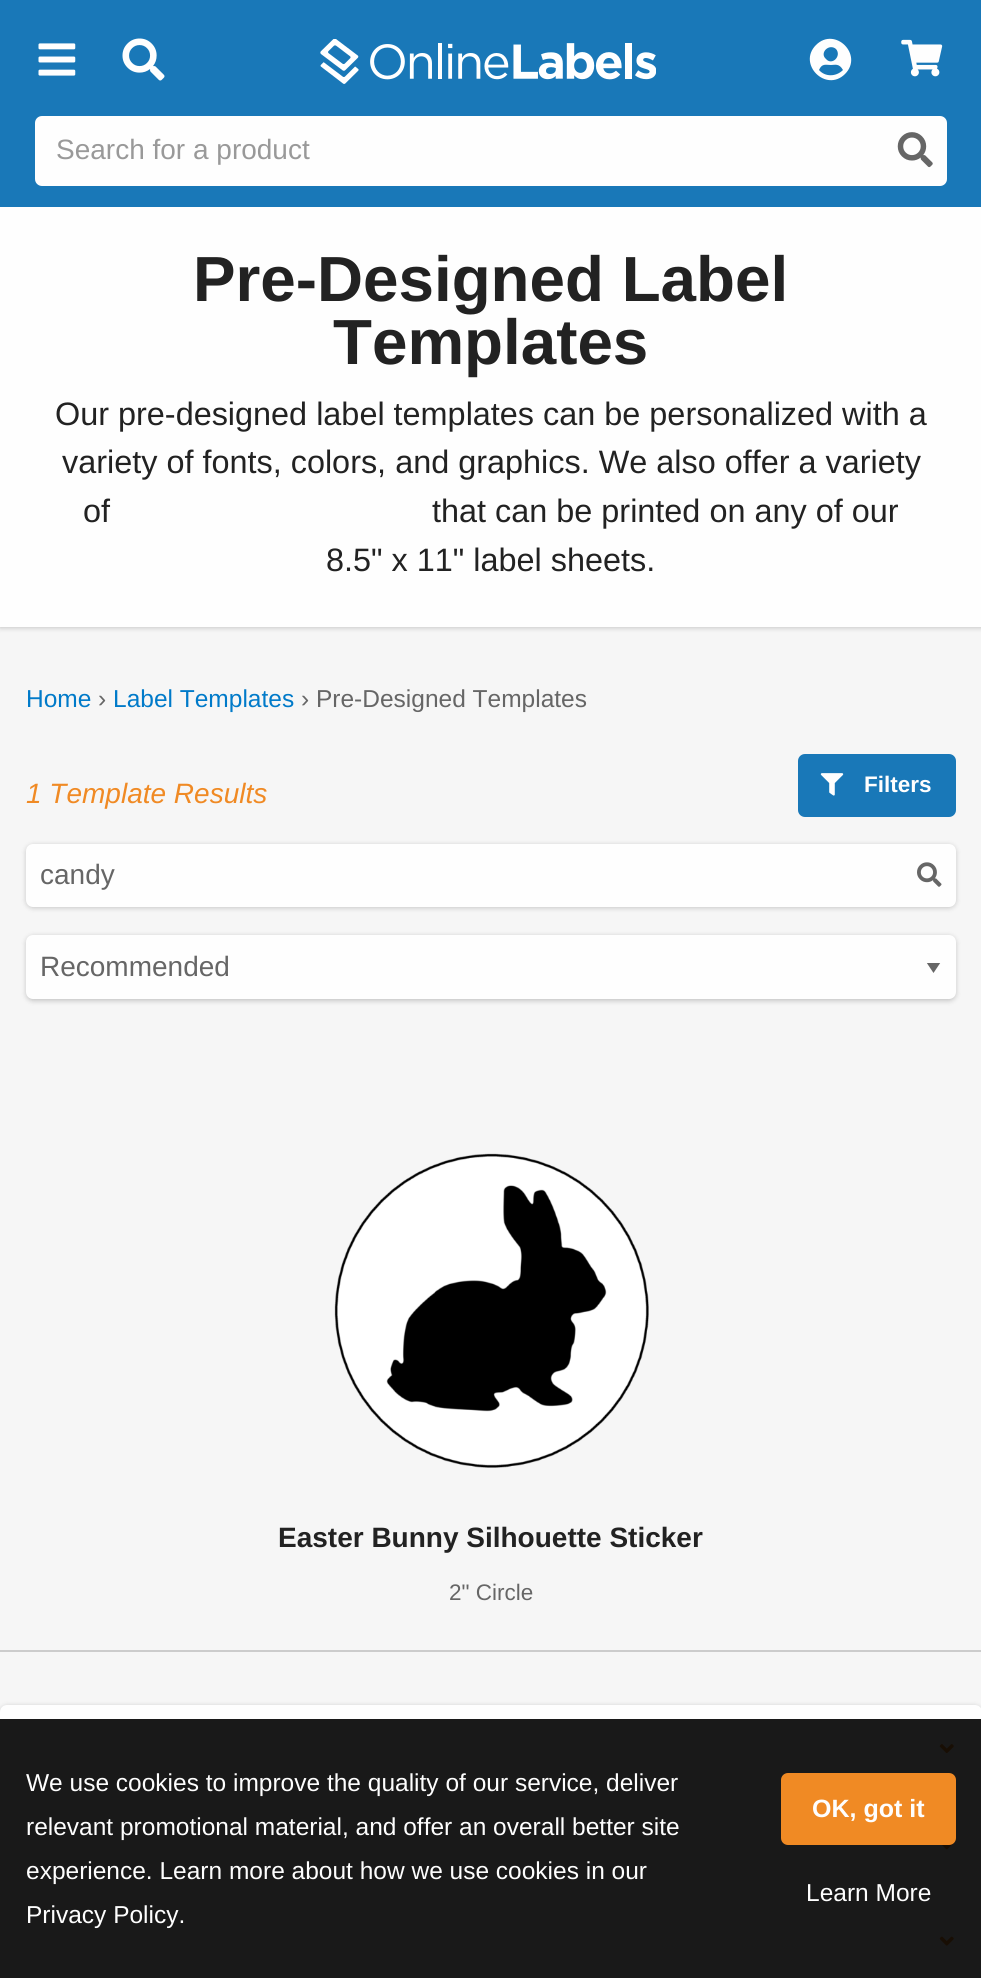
#include <cairo/cairo.h>
#include <math.h>
#include <stddef.h>

typedef struct { double x, y; const char *s; } line_t;
static cairo_t *cr;

static void rgb(unsigned color)
{
	cairo_set_source_rgb(cr, (color >> 16) / 255.0, (color >> 8 & 255) / 255.0, (color & 255) / 255.0);
}

static void rrect(double x, double y, double w, double h, double r)
{
	cairo_new_sub_path(cr);
	cairo_arc(cr, x + w - r, y + h - r, r, 0, M_PI / 2);
	cairo_arc(cr, x + r, y + h - r, r, M_PI / 2, M_PI);
	cairo_arc(cr, x + r, y + r, r, M_PI, 1.5 * M_PI);
	cairo_arc(cr, x + w - r, y + r, r, 1.5 * M_PI, 2 * M_PI);
	cairo_close_path(cr);
}

static void soft_shadow(double x, double y, double w, double h, double r, double blur, double alpha)
{
	cairo_push_group_with_content(cr, CAIRO_CONTENT_ALPHA);
	cairo_set_operator(cr, CAIRO_OPERATOR_SOURCE);
	for (int i = 15; i >= -15 && fmin(w, h) + blur * i / 3 > 0; i -= 2) {
		double e = blur * i / 6;
		cairo_set_source_rgba(cr, 0, 0, 0, alpha * erfc((i - 1) / 8.5) / 2);
		rrect(x - e, y - e, w + 2 * e, h + 2 * e, fmax(0, fmin(r + e + blur * .6, fmin(w, h) / 2 + e)));
		cairo_fill(cr);
	}
	cairo_pattern_t *soft = cairo_pop_group(cr);
	cairo_mask(cr, soft);
	cairo_pattern_destroy(soft);
}

static void image(const char *path, double x, double y, double w, double h)
{
	cairo_surface_t *image = cairo_image_surface_create_from_png(path);
	cairo_save(cr);
	cairo_set_source_surface(cr, image, x, y);
	cairo_rectangle(cr, x, y, w, h);
	cairo_fill(cr);
	cairo_restore(cr);
	cairo_surface_destroy(image);
}

int main(void) {
	cairo_surface_t *surface = cairo_image_surface_create(CAIRO_FORMAT_RGB24, 981, 1978);
	cr = cairo_create(surface);
	cairo_font_options_t *options = cairo_font_options_create();
	cairo_font_options_set_hint_metrics(options, CAIRO_HINT_METRICS_OFF);
	cairo_font_options_set_hint_style(options, CAIRO_HINT_STYLE_NONE);
	cairo_set_font_options(cr, options);
	cairo_set_miter_limit(cr, 4);
	rgb(0xf6f6f6);
	cairo_paint(cr);
	rgb(0x000000);
	soft_shadow(0, 208, 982, 420, 0, 2.5, 0.2);
	rgb(0x1978b8);
	cairo_rectangle(cr, 0, 0, 981, 207);
	cairo_fill(cr);
	image("img/1.png", 38, 43, 38, 33);
	image("img/2.png", 122, 38, 43, 43);
	image("img/3.png", 320, 39, 336, 45);
	rgb(0xfefefe);
	cairo_new_path(cr);
	cairo_move_to(cr, 816, 45);
	cairo_curve_to(cr, 835, 26, 864, 55, 845, 74);
	cairo_curve_to(cr, 826, 93, 797, 64, 816, 45);
	cairo_close_path(cr);
	cairo_move_to(cr, 836, 49);
	cairo_curve_to(cr, 829, 43, 819, 53, 826, 59);
	cairo_curve_to(cr, 832, 66, 842, 56, 836, 49);
	cairo_close_path(cr);
	cairo_move_to(cr, 819, 70);
	cairo_curve_to(cr, 825, 77, 836, 77, 843, 70);
	cairo_curve_to(cr, 839, 63, 835, 65, 831, 65);
	cairo_curve_to(cr, 826, 65, 822, 63, 819, 70);
	cairo_close_path(cr);
	cairo_fill(cr);
	image("img/4.png", 901, 39, 42, 38);
	rrect(35, 116, 912, 70, 7);
	cairo_fill(cr);
	image("img/5.png", 897, 132, 36, 36);
	cairo_rectangle(cr, 0, 207, 981, 420);
	cairo_fill(cr);
	rgb(0x000000);
	soft_shadow(26, 845, 930, 63, 7, 2.5, 0.2);
	rgb(0xfefefe);
	rrect(26, 844, 930, 63, 7);
	cairo_fill(cr);
	image("img/6.png", 917, 862, 25, 25);
	rgb(0x000000);
	soft_shadow(26, 936, 930, 65, 7, 2.5, 0.2);
	rgb(0xfefefe);
	rrect(26, 935, 930, 64, 7);
	cairo_fill(cr);
	cairo_save(cr);
	cairo_rectangle(cr, 926, 963, 16, 10);
	cairo_clip(cr);
	rgb(0x666666);
	cairo_new_path(cr);
	cairo_move_to(cr, 926.5, 962.5);
	cairo_line_to(cr, 940.5, 962.5);
	cairo_line_to(cr, 933.5, 973);
	cairo_close_path(cr);
	cairo_fill(cr);
	cairo_restore(cr);
	rgb(0xcccccc);
	cairo_rectangle(cr, 0, 1650, 981, 2);
	cairo_fill(cr);
	image("img/7.png", 334, 1153, 315, 315);
	rgb(0x1978b8);
	rrect(798, 754, 158, 63, 7);
	cairo_fill(cr);
	image("img/8.png", 820, 773, 24, 23);
	rgb(0x000000);
	soft_shadow(0, 1706, 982, 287, 7, 2.5, 0.2);
	rgb(0xfefefe);
	rrect(0, 1705, 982, 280, 7);
	cairo_fill(cr);
	rgb(0x191919);
	cairo_rectangle(cr, 0, 1719, 981, 259);
	cairo_fill(cr);
	image("img/9.png", 939, 1744, 15, 10);
	image("img/10.png", 942, 1843, 12, 7);
	image("img/11.png", 939, 1936, 15, 10);
	rgb(0xf08a24);
	rrect(781, 1773, 175, 72, 7);
	cairo_fill(cr);
	cairo_select_font_face(cr, "Liberation Sans", CAIRO_FONT_SLANT_NORMAL, CAIRO_FONT_WEIGHT_NORMAL);
	cairo_set_font_size(cr, 28);
	rgb(0x999999);
	cairo_move_to(cr, 56, 159);
	cairo_show_text(cr, "Search for a product");
	cairo_select_font_face(cr, "Liberation Sans", CAIRO_FONT_SLANT_NORMAL, CAIRO_FONT_WEIGHT_BOLD);
	cairo_set_font_size(cr, 63.75);
	rgb(0x222222);
	cairo_move_to(cr, 193, 301);
	cairo_show_text(cr, "Pre-Designed Label");
	cairo_move_to(cr, 333, 364);
	cairo_show_text(cr, "Templates");
	cairo_select_font_face(cr, "Liberation Sans", CAIRO_FONT_SLANT_NORMAL, CAIRO_FONT_WEIGHT_NORMAL);
	cairo_set_font_size(cr, 32.4);
	{
		static const line_t items[] = {
			{55, 425, "Our pre-designed label templates can be personalized with a"},
			{62, 473, "variety of fonts, colors, and graphics. We also offer a variety"},
			{83, 522, "of"},
			{432, 522, "that can be printed on any of our"},
			{326, 571, "8.5\" x 11\" label sheets."},
		};
		for (size_t i = 0; i < sizeof items / sizeof *items; i++) {
			cairo_move_to(cr, items[i].x, items[i].y);
			cairo_show_text(cr, items[i].s);
		}
	}
	cairo_set_font_size(cr, 24.5);
	rgb(0x007ac9);
	cairo_move_to(cr, 26, 707);
	cairo_show_text(cr, "Home");
	rgb(0x666666);
	cairo_move_to(cr, 98, 707);
	cairo_show_text(cr, "›");
	rgb(0x007ac9);
	cairo_move_to(cr, 113, 707);
	cairo_show_text(cr, "Label Templates");
	rgb(0x666666);
	cairo_move_to(cr, 301, 707);
	cairo_show_text(cr, "› Pre-Designed Templates");
	cairo_select_font_face(cr, "Liberation Sans", CAIRO_FONT_SLANT_ITALIC, CAIRO_FONT_WEIGHT_NORMAL);
	cairo_set_font_size(cr, 28);
	rgb(0xf08a24);
	cairo_move_to(cr, 26, 803);
	cairo_show_text(cr, "1 Template Results");
	cairo_select_font_face(cr, "Liberation Sans", CAIRO_FONT_SLANT_NORMAL, CAIRO_FONT_WEIGHT_NORMAL);
	rgb(0x666666);
	cairo_move_to(cr, 40, 884);
	cairo_show_text(cr, "candy");
	cairo_move_to(cr, 40, 976);
	cairo_show_text(cr, "Recommended");
	cairo_select_font_face(cr, "Liberation Sans", CAIRO_FONT_SLANT_NORMAL, CAIRO_FONT_WEIGHT_BOLD);
	rgb(0x222222);
	cairo_move_to(cr, 278, 1547);
	cairo_show_text(cr, "Easter Bunny Silhouette Sticker");
	cairo_select_font_face(cr, "Liberation Sans", CAIRO_FONT_SLANT_NORMAL, CAIRO_FONT_WEIGHT_NORMAL);
	cairo_set_font_size(cr, 22.5);
	rgb(0x666666);
	cairo_move_to(cr, 449, 1600);
	cairo_show_text(cr, "2\" Circle");
	cairo_select_font_face(cr, "Liberation Sans", CAIRO_FONT_SLANT_NORMAL, CAIRO_FONT_WEIGHT_BOLD);
	rgb(0xfefefe);
	cairo_move_to(cr, 864, 792);
	cairo_show_text(cr, "Filters");
	cairo_select_font_face(cr, "Liberation Sans", CAIRO_FONT_SLANT_NORMAL, CAIRO_FONT_WEIGHT_NORMAL);
	cairo_set_font_size(cr, 24.5);
	{
		static const line_t items[] = {
			{26, 1791, "We use cookies to improve the quality of our service, deliver"},
			{26, 1835, "relevant promotional material, and offer an overall better site"},
			{26, 1879, "experience. Learn more about how we use cookies in our"},
			{26, 1923, "Privacy Policy."},
		};
		for (size_t i = 0; i < sizeof items / sizeof *items; i++) {
			cairo_move_to(cr, items[i].x, items[i].y);
			cairo_show_text(cr, items[i].s);
		}
	}
	cairo_select_font_face(cr, "Liberation Sans", CAIRO_FONT_SLANT_NORMAL, CAIRO_FONT_WEIGHT_BOLD);
	cairo_set_font_size(cr, 25);
	cairo_move_to(cr, 812, 1817);
	cairo_show_text(cr, "OK, got it");
	cairo_select_font_face(cr, "Liberation Sans", CAIRO_FONT_SLANT_NORMAL, CAIRO_FONT_WEIGHT_NORMAL);
	cairo_set_font_size(cr, 24.5);
	cairo_move_to(cr, 806, 1901);
	cairo_show_text(cr, "Learn More");
	cairo_surface_write_to_png(surface, "page.png");
	cairo_font_options_destroy(options);
	cairo_destroy(cr);
	cairo_surface_destroy(surface);
	return 0;
}
